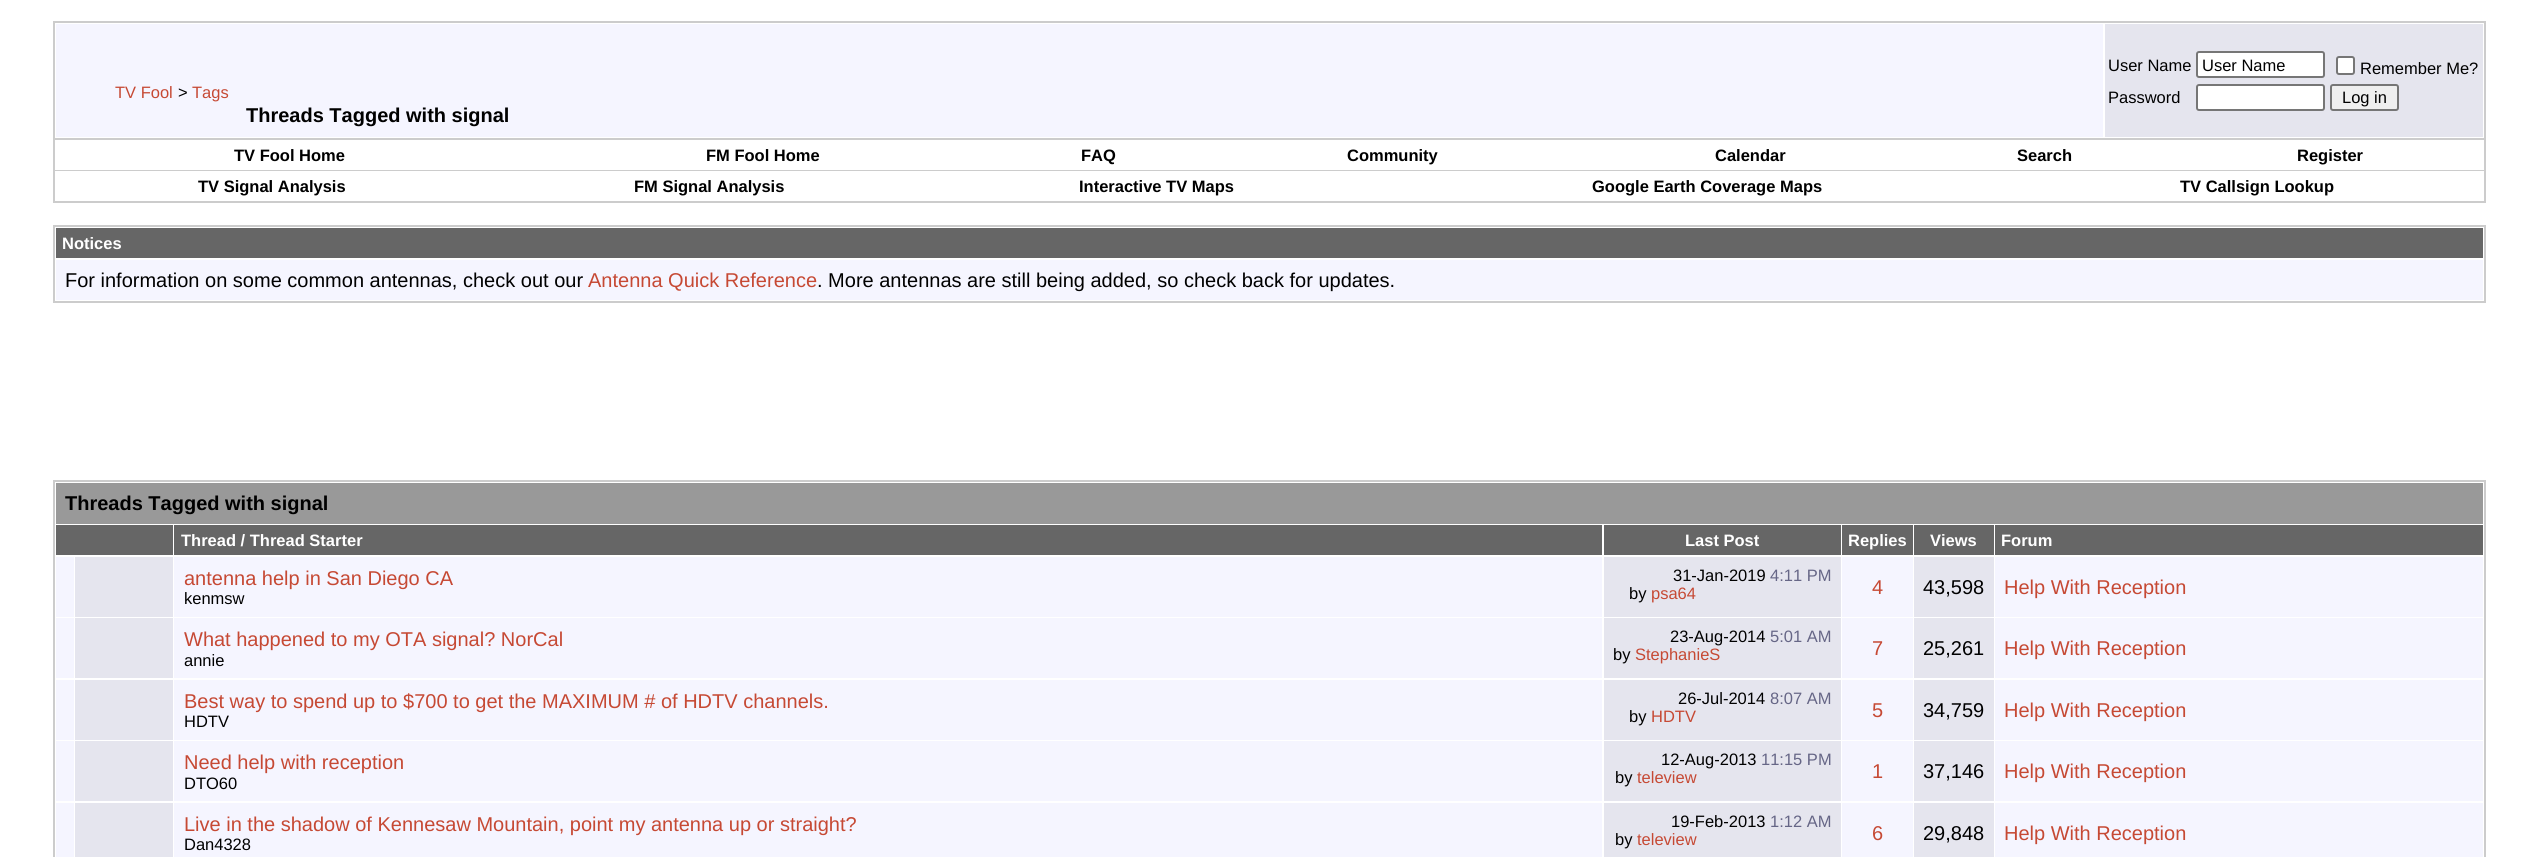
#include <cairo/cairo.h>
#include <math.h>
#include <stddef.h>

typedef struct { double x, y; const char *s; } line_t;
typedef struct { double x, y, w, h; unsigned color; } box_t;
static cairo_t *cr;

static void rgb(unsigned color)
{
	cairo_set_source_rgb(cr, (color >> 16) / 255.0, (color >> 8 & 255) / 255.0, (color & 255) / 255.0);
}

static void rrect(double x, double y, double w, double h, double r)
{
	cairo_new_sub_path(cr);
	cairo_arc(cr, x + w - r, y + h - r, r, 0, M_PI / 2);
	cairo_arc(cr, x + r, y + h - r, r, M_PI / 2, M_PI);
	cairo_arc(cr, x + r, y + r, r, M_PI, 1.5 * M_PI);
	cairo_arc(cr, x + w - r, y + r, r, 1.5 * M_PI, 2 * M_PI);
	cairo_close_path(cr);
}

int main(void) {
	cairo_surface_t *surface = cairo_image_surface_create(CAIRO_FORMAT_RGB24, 2537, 857);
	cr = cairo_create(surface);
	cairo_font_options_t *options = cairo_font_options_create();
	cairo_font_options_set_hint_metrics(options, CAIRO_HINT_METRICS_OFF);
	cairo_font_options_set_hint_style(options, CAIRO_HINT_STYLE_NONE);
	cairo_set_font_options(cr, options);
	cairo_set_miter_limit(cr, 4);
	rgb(0xffffff);
	cairo_paint(cr);
	cairo_rectangle(cr, 54, 22, 2431, 117);
	rgb(0xcccccc);
	cairo_stroke(cr);
	rgb(0xf5f5ff);
	cairo_rectangle(cr, 56, 24, 2047, 113);
	cairo_fill(cr);
	rgb(0xe5e5ee);
	cairo_rectangle(cr, 2105, 24, 378, 113);
	cairo_fill(cr);
	rgb(0xffffff);
	rrect(2197, 52, 127, 25, 2);
	cairo_fill_preserve(cr);
	rgb(0x767676);
	cairo_stroke(cr);
	rgb(0xffffff);
	rrect(2337, 57, 17, 17, 2);
	cairo_fill_preserve(cr);
	rgb(0x767676);
	cairo_stroke(cr);
	rgb(0xffffff);
	rrect(2197, 85, 127, 25, 2);
	cairo_fill_preserve(cr);
	rgb(0x767676);
	cairo_stroke(cr);
	rgb(0xefefef);
	rrect(2331, 85, 67, 25, 2);
	cairo_fill_preserve(cr);
	rgb(0x767676);
	cairo_stroke(cr);
	{
		static const box_t items[] = {
			{2484, 140, 2, 63, 0xcccccc},
			{53, 170, 2433, 1, 0xcccccc},
			{53, 140, 2, 31, 0xcccccc},
			{53, 201, 2433, 2, 0xcccccc},
			{53, 171, 2, 32, 0xcccccc},
		};
		for (size_t i = 0; i < sizeof items / sizeof *items; i++) {
			rgb(items[i].color);
			cairo_rectangle(cr, items[i].x, items[i].y, items[i].w, items[i].h);
			cairo_fill(cr);
		}
	}
	cairo_rectangle(cr, 54, 226, 2431, 76);
	cairo_stroke(cr);
	rgb(0x666666);
	cairo_rectangle(cr, 56, 228, 2427, 30);
	cairo_fill(cr);
	rgb(0xf5f5ff);
	cairo_rectangle(cr, 56, 260, 2427, 40);
	cairo_fill(cr);
	cairo_rectangle(cr, 54, 481, 2431, 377);
	rgb(0xcccccc);
	cairo_stroke(cr);
	{
		static const box_t items[] = {
			{56, 483, 2427, 41, 0x999999},
			{56, 525, 117, 30, 0x666666},
			{174, 525, 1428, 30, 0x666666},
			{1604, 525, 237, 30, 0x666666},
			{1842, 525, 71, 30, 0x666666},
			{1914, 525, 80, 30, 0x666666},
			{1995, 525, 488, 30, 0x666666},
			{56, 557, 18, 60, 0xf5f5ff},
			{75, 557, 98, 60, 0xe5e5ee},
			{174, 557, 1428, 60, 0xf5f5ff},
			{1604, 557, 237, 60, 0xe5e5ee},
			{1842, 557, 71, 60, 0xf5f5ff},
			{1914, 557, 80, 60, 0xe5e5ee},
			{1995, 557, 488, 60, 0xf5f5ff},
			{56, 618, 18, 60, 0xf5f5ff},
			{75, 618, 98, 60, 0xe5e5ee},
			{174, 618, 1428, 60, 0xf5f5ff},
			{1604, 618, 237, 60, 0xe5e5ee},
			{1842, 618, 71, 60, 0xf5f5ff},
			{1914, 618, 80, 60, 0xe5e5ee},
			{1995, 618, 488, 60, 0xf5f5ff},
			{56, 680, 18, 60, 0xf5f5ff},
			{75, 680, 98, 60, 0xe5e5ee},
			{174, 680, 1428, 60, 0xf5f5ff},
			{1604, 680, 237, 60, 0xe5e5ee},
			{1842, 680, 71, 60, 0xf5f5ff},
			{1914, 680, 80, 60, 0xe5e5ee},
			{1995, 680, 488, 60, 0xf5f5ff},
			{56, 741, 18, 60, 0xf5f5ff},
			{75, 741, 98, 60, 0xe5e5ee},
			{174, 741, 1428, 60, 0xf5f5ff},
			{1604, 741, 237, 60, 0xe5e5ee},
			{1842, 741, 71, 60, 0xf5f5ff},
			{1914, 741, 80, 60, 0xe5e5ee},
			{1995, 741, 488, 60, 0xf5f5ff},
			{56, 803, 18, 54, 0xf5f5ff},
			{75, 803, 98, 54, 0xe5e5ee},
			{174, 803, 1428, 54, 0xf5f5ff},
			{1604, 803, 237, 54, 0xe5e5ee},
			{1842, 803, 71, 54, 0xf5f5ff},
			{1914, 803, 80, 54, 0xe5e5ee},
			{1995, 803, 488, 54, 0xf5f5ff},
		};
		for (size_t i = 0; i < sizeof items / sizeof *items; i++) {
			rgb(items[i].color);
			cairo_rectangle(cr, items[i].x, items[i].y, items[i].w, items[i].h);
			cairo_fill(cr);
		}
	}
	cairo_select_font_face(cr, "Liberation Sans", CAIRO_FONT_SLANT_NORMAL, CAIRO_FONT_WEIGHT_NORMAL);
	cairo_set_font_size(cr, 16.5);
	rgb(0xc64934);
	cairo_move_to(cr, 115, 98);
	cairo_show_text(cr, "TV Fool");
	rgb(0x000000);
	cairo_move_to(cr, 178, 98);
	cairo_show_text(cr, ">");
	rgb(0xc64934);
	cairo_move_to(cr, 192, 98);
	cairo_show_text(cr, "Tags");
	cairo_select_font_face(cr, "Liberation Sans", CAIRO_FONT_SLANT_NORMAL, CAIRO_FONT_WEIGHT_BOLD);
	cairo_set_font_size(cr, 20);
	rgb(0x000000);
	cairo_move_to(cr, 246, 122);
	cairo_show_text(cr, "Threads Tagged with signal");
	cairo_select_font_face(cr, "Liberation Sans", CAIRO_FONT_SLANT_NORMAL, CAIRO_FONT_WEIGHT_NORMAL);
	cairo_set_font_size(cr, 16.5);
	{
		static const line_t items[] = {
			{2108, 71, "User Name"},
			{2202, 71, "User Name"},
			{2360, 74, "Remember Me?"},
			{2108, 103, "Password"},
			{2342, 103, "Log in"},
		};
		for (size_t i = 0; i < sizeof items / sizeof *items; i++) {
			cairo_move_to(cr, items[i].x, items[i].y);
			cairo_show_text(cr, items[i].s);
		}
	}
	cairo_select_font_face(cr, "Liberation Sans", CAIRO_FONT_SLANT_NORMAL, CAIRO_FONT_WEIGHT_BOLD);
	{
		static const line_t items[] = {
			{234, 161, "TV Fool Home"},
			{706, 161, "FM Fool Home"},
			{1081, 161, "FAQ"},
			{1347, 161, "Community"},
			{1715, 161, "Calendar"},
			{2017, 161, "Search"},
			{2297, 161, "Register"},
			{198, 192, "TV Signal Analysis"},
			{634, 192, "FM Signal Analysis"},
			{1079, 192, "Interactive TV Maps"},
			{1592, 192, "Google Earth Coverage Maps"},
			{2180, 192, "TV Callsign Lookup"},
		};
		for (size_t i = 0; i < sizeof items / sizeof *items; i++) {
			cairo_move_to(cr, items[i].x, items[i].y);
			cairo_show_text(cr, items[i].s);
		}
	}
	rgb(0xffffff);
	cairo_move_to(cr, 62, 249);
	cairo_show_text(cr, "Notices");
	cairo_select_font_face(cr, "Liberation Sans", CAIRO_FONT_SLANT_NORMAL, CAIRO_FONT_WEIGHT_NORMAL);
	cairo_set_font_size(cr, 20);
	rgb(0x000000);
	cairo_move_to(cr, 65, 287);
	cairo_show_text(cr, "For information on some common antennas, check out our");
	rgb(0xc64934);
	cairo_move_to(cr, 588, 287);
	cairo_show_text(cr, "Antenna Quick Reference");
	rgb(0x000000);
	cairo_move_to(cr, 817, 287);
	cairo_show_text(cr, ". More antennas are still being added, so check back for updates.");
	cairo_select_font_face(cr, "Liberation Sans", CAIRO_FONT_SLANT_NORMAL, CAIRO_FONT_WEIGHT_BOLD);
	cairo_move_to(cr, 65, 510);
	cairo_show_text(cr, "Threads Tagged with signal");
	cairo_set_font_size(cr, 16.5);
	rgb(0xffffff);
	{
		static const line_t items[] = {
			{181, 546, "Thread / Thread Starter"},
			{1685, 546, "Last Post"},
			{1848, 546, "Replies"},
			{1930, 546, "Views"},
			{2001, 546, "Forum"},
		};
		for (size_t i = 0; i < sizeof items / sizeof *items; i++) {
			cairo_move_to(cr, items[i].x, items[i].y);
			cairo_show_text(cr, items[i].s);
		}
	}
	cairo_select_font_face(cr, "Liberation Sans", CAIRO_FONT_SLANT_NORMAL, CAIRO_FONT_WEIGHT_NORMAL);
	cairo_set_font_size(cr, 20);
	rgb(0xc64934);
	cairo_move_to(cr, 184, 585);
	cairo_show_text(cr, "antenna help in San Diego CA");
	cairo_set_font_size(cr, 16.5);
	rgb(0x000000);
	cairo_move_to(cr, 184, 604);
	cairo_show_text(cr, "kenmsw");
	cairo_move_to(cr, 1673, 581);
	cairo_show_text(cr, "31-Jan-2019");
	rgb(0x666686);
	cairo_move_to(cr, 1770, 581);
	cairo_show_text(cr, "4:11 PM");
	rgb(0x000000);
	cairo_move_to(cr, 1629, 599);
	cairo_show_text(cr, "by");
	rgb(0xc64934);
	cairo_move_to(cr, 1651, 599);
	cairo_show_text(cr, "psa64");
	cairo_set_font_size(cr, 20);
	cairo_move_to(cr, 1872, 594);
	cairo_show_text(cr, "4");
	rgb(0x000000);
	cairo_move_to(cr, 1923, 594);
	cairo_show_text(cr, "43,598");
	rgb(0xc64934);
	cairo_move_to(cr, 2004, 594);
	cairo_show_text(cr, "Help With Reception");
	cairo_move_to(cr, 184, 646);
	cairo_show_text(cr, "What happened to my OTA signal? NorCal");
	cairo_set_font_size(cr, 16.5);
	rgb(0x000000);
	cairo_move_to(cr, 184, 666);
	cairo_show_text(cr, "annie");
	cairo_move_to(cr, 1670, 642);
	cairo_show_text(cr, "23-Aug-2014");
	rgb(0x666686);
	cairo_move_to(cr, 1770, 642);
	cairo_show_text(cr, "5:01 AM");
	rgb(0x000000);
	cairo_move_to(cr, 1613, 660);
	cairo_show_text(cr, "by");
	rgb(0xc64934);
	cairo_move_to(cr, 1635, 660);
	cairo_show_text(cr, "StephanieS");
	cairo_set_font_size(cr, 20);
	cairo_move_to(cr, 1872, 655);
	cairo_show_text(cr, "7");
	rgb(0x000000);
	cairo_move_to(cr, 1923, 655);
	cairo_show_text(cr, "25,261");
	rgb(0xc64934);
	cairo_move_to(cr, 2004, 655);
	cairo_show_text(cr, "Help With Reception");
	cairo_move_to(cr, 184, 708);
	cairo_show_text(cr, "Best way to spend up to $700 to get the MAXIMUM # of HDTV channels.");
	cairo_set_font_size(cr, 16.5);
	rgb(0x000000);
	cairo_move_to(cr, 184, 727);
	cairo_show_text(cr, "HDTV");
	cairo_move_to(cr, 1678, 704);
	cairo_show_text(cr, "26-Jul-2014");
	rgb(0x666686);
	cairo_move_to(cr, 1770, 704);
	cairo_show_text(cr, "8:07 AM");
	rgb(0x000000);
	cairo_move_to(cr, 1629, 722);
	cairo_show_text(cr, "by");
	rgb(0xc64934);
	cairo_move_to(cr, 1651, 722);
	cairo_show_text(cr, "HDTV");
	cairo_set_font_size(cr, 20);
	cairo_move_to(cr, 1872, 717);
	cairo_show_text(cr, "5");
	rgb(0x000000);
	cairo_move_to(cr, 1923, 717);
	cairo_show_text(cr, "34,759");
	rgb(0xc64934);
	cairo_move_to(cr, 2004, 717);
	cairo_show_text(cr, "Help With Reception");
	cairo_move_to(cr, 184, 769);
	cairo_show_text(cr, "Need help with reception");
	cairo_set_font_size(cr, 16.5);
	rgb(0x000000);
	cairo_move_to(cr, 184, 789);
	cairo_show_text(cr, "DTO60");
	cairo_move_to(cr, 1661, 765);
	cairo_show_text(cr, "12-Aug-2013");
	rgb(0x666686);
	cairo_move_to(cr, 1761, 765);
	cairo_show_text(cr, "11:15 PM");
	rgb(0x000000);
	cairo_move_to(cr, 1615, 783);
	cairo_show_text(cr, "by");
	rgb(0xc64934);
	cairo_move_to(cr, 1637, 783);
	cairo_show_text(cr, "teleview");
	cairo_set_font_size(cr, 20);
	cairo_move_to(cr, 1872, 778);
	cairo_show_text(cr, "1");
	rgb(0x000000);
	cairo_move_to(cr, 1923, 778);
	cairo_show_text(cr, "37,146");
	rgb(0xc64934);
	cairo_move_to(cr, 2004, 778);
	cairo_show_text(cr, "Help With Reception");
	cairo_move_to(cr, 184, 831);
	cairo_show_text(cr, "Live in the shadow of Kennesaw Mountain, point my antenna up or straight?");
	cairo_set_font_size(cr, 16.5);
	rgb(0x000000);
	cairo_move_to(cr, 184, 850);
	cairo_show_text(cr, "Dan4328");
	cairo_move_to(cr, 1671, 827);
	cairo_show_text(cr, "19-Feb-2013");
	rgb(0x666686);
	cairo_move_to(cr, 1770, 827);
	cairo_show_text(cr, "1:12 AM");
	rgb(0x000000);
	cairo_move_to(cr, 1615, 845);
	cairo_show_text(cr, "by");
	rgb(0xc64934);
	cairo_move_to(cr, 1637, 845);
	cairo_show_text(cr, "teleview");
	cairo_set_font_size(cr, 20);
	cairo_move_to(cr, 1872, 840);
	cairo_show_text(cr, "6");
	rgb(0x000000);
	cairo_move_to(cr, 1923, 840);
	cairo_show_text(cr, "29,848");
	rgb(0xc64934);
	cairo_move_to(cr, 2004, 840);
	cairo_show_text(cr, "Help With Reception");
	cairo_surface_write_to_png(surface, "page.png");
	cairo_font_options_destroy(options);
	cairo_destroy(cr);
	cairo_surface_destroy(surface);
	return 0;
}
